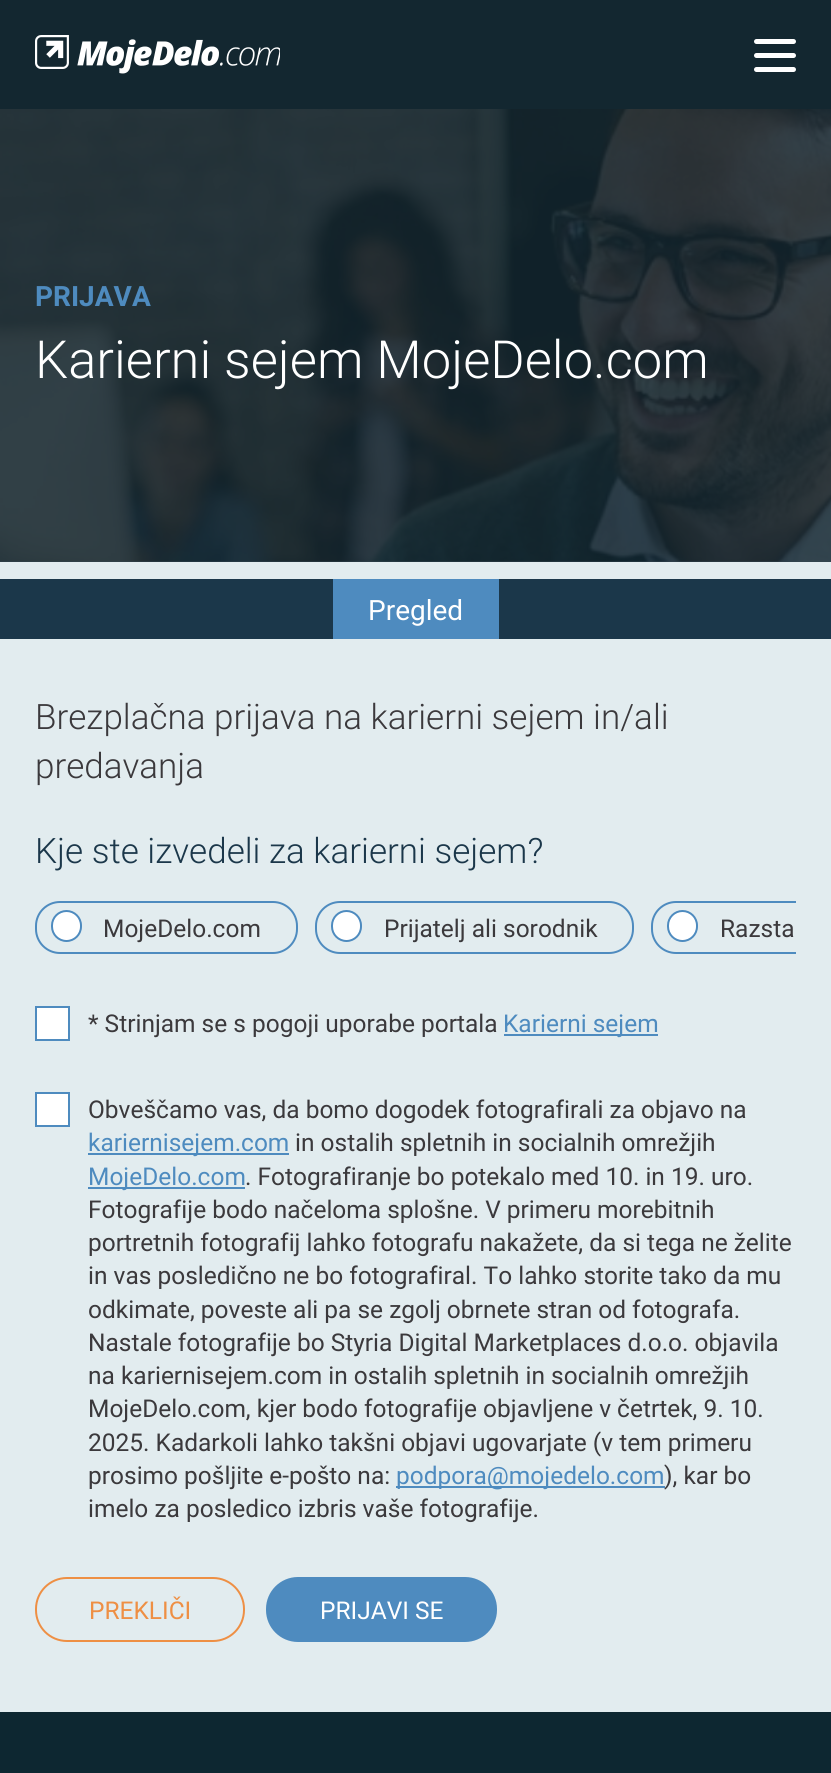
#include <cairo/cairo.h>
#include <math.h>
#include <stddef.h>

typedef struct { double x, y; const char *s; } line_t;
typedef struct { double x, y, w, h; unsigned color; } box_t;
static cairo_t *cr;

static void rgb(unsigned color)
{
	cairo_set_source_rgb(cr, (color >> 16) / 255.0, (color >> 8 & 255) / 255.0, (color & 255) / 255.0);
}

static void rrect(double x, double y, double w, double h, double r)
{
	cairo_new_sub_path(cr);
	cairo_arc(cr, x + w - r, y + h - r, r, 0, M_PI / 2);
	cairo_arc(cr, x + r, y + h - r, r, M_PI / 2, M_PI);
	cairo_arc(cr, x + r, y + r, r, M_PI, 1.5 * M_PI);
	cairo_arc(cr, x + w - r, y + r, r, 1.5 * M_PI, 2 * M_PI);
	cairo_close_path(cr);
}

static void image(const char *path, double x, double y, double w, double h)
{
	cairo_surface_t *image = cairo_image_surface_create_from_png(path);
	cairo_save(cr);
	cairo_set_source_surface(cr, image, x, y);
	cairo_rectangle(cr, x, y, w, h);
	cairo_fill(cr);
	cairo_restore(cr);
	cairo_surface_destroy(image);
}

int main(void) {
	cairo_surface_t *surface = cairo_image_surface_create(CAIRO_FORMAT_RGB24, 831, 1773);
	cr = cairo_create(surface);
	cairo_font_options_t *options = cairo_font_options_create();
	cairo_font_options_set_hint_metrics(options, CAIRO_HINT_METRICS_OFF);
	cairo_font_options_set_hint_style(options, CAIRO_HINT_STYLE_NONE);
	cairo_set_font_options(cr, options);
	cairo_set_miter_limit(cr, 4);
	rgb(0xe2ecef);
	cairo_paint(cr);
	rgb(0x32454d);
	cairo_rectangle(cr, 0, 561, 831, 1);
	cairo_fill(cr);
	rgb(0x132730);
	cairo_rectangle(cr, 0, 0, 831, 109);
	cairo_fill(cr);
	image("img/1.png", 35, 35, 245, 39);
	rgb(0xffffff);
	rrect(754, 39, 42, 5, 2.5);
	cairo_fill(cr);
	rrect(754, 53, 42, 5, 2.5);
	cairo_fill(cr);
	rrect(754, 67, 42, 5, 2.5);
	cairo_fill(cr);
	image("img/2.png", 0, 109, 831, 453);
	rgb(0x1b374a);
	cairo_rectangle(cr, 0, 579, 831, 60);
	cairo_fill(cr);
	rgb(0x4e8bbf);
	cairo_rectangle(cr, 333, 579, 166, 60);
	cairo_fill(cr);
	rrect(36, 902, 261, 51, 24);
	cairo_stroke(cr);
	rgb(0xffffff);
	rrect(52, 911, 29, 30, 14.5);
	cairo_fill_preserve(cr);
	rgb(0x4e8bbf);
	cairo_stroke(cr);
	rrect(316, 902, 317, 51, 24);
	cairo_stroke(cr);
	rgb(0xffffff);
	rrect(332, 911, 29, 30, 14.5);
	cairo_fill_preserve(cr);
	rgb(0x4e8bbf);
	cairo_stroke(cr);
	cairo_save(cr);
	cairo_rectangle(cr, 35, 901, 761, 53);
	cairo_clip(cr);
	rrect(652, 902, 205, 51, 24);
	cairo_stroke(cr);
	cairo_restore(cr);
	rgb(0xffffff);
	rrect(668, 911, 29, 30, 14.5);
	cairo_fill_preserve(cr);
	rgb(0x4e8bbf);
	cairo_stroke(cr);
	rgb(0xffffff);
	cairo_rectangle(cr, 36, 1007, 33, 33);
	cairo_fill_preserve(cr);
	rgb(0x4e8bbf);
	cairo_stroke(cr);
	cairo_rectangle(cr, 504, 1034, 154, 2);
	cairo_fill(cr);
	rgb(0xffffff);
	cairo_rectangle(cr, 36, 1093, 33, 33);
	cairo_fill_preserve(cr);
	rgb(0x4e8bbf);
	cairo_stroke(cr);
	{
		static const box_t items[] = {
			{88, 1153, 201, 2, 0x4e8bbf},
			{88, 1187, 157, 2, 0x4e8bbf},
			{396, 1486, 269, 2, 0x4e8bbf},
		};
		for (size_t i = 0; i < sizeof items / sizeof *items; i++) {
			rgb(items[i].color);
			cairo_rectangle(cr, items[i].x, items[i].y, items[i].w, items[i].h);
			cairo_fill(cr);
		}
	}
	rrect(36, 1578, 208, 63, 31);
	rgb(0xee8f44);
	cairo_stroke(cr);
	rgb(0x4e8bbf);
	rrect(267, 1578, 229, 63, 31);
	cairo_fill_preserve(cr);
	cairo_stroke(cr);
	rgb(0x0d2731);
	cairo_rectangle(cr, 0, 1712, 831, 61);
	cairo_fill(cr);
	cairo_select_font_face(cr, "Roboto", CAIRO_FONT_SLANT_NORMAL, CAIRO_FONT_WEIGHT_BOLD);
	cairo_set_font_size(cr, 28);
	rgb(0x4e8bbf);
	cairo_move_to(cr, 35, 306);
	cairo_show_text(cr, "PRIJAVA");
	cairo_select_font_face(cr, "Roboto Light", CAIRO_FONT_SLANT_NORMAL, CAIRO_FONT_WEIGHT_NORMAL);
	cairo_set_font_size(cr, 52.5);
	rgb(0xffffff);
	cairo_move_to(cr, 35, 378);
	cairo_show_text(cr, "Karierni sejem MojeDelo.com");
	cairo_select_font_face(cr, "Roboto", CAIRO_FONT_SLANT_NORMAL, CAIRO_FONT_WEIGHT_NORMAL);
	cairo_set_font_size(cr, 28);
	cairo_move_to(cr, 368, 620);
	cairo_show_text(cr, "Pregled");
	cairo_select_font_face(cr, "Roboto Light", CAIRO_FONT_SLANT_NORMAL, CAIRO_FONT_WEIGHT_NORMAL);
	cairo_set_font_size(cr, 35);
	rgb(0x3b393c);
	cairo_move_to(cr, 35, 729);
	cairo_show_text(cr, "Brezplačna prijava na karierni sejem in/ali");
	cairo_move_to(cr, 35, 778);
	cairo_show_text(cr, "predavanja");
	rgb(0x1b374a);
	cairo_move_to(cr, 35, 863);
	cairo_show_text(cr, "Kje ste izvedeli za karierni sejem?");
	cairo_select_font_face(cr, "Roboto", CAIRO_FONT_SLANT_NORMAL, CAIRO_FONT_WEIGHT_NORMAL);
	cairo_set_font_size(cr, 24.5);
	rgb(0x3b393c);
	{
		static const line_t items[] = {
			{103, 937, "MojeDelo.com"},
			{384, 937, "Prijatelj ali sorodnik"},
			{720, 937, "Razsta"},
			{88, 1032, "* Strinjam se s pogoji uporabe portala"},
		};
		for (size_t i = 0; i < sizeof items / sizeof *items; i++) {
			cairo_move_to(cr, items[i].x, items[i].y);
			cairo_show_text(cr, items[i].s);
		}
	}
	rgb(0x4e8bbf);
	cairo_move_to(cr, 503, 1032);
	cairo_show_text(cr, "Karierni sejem");
	rgb(0x3b393c);
	cairo_move_to(cr, 88, 1118);
	cairo_show_text(cr, "Obveščamo vas, da bomo dogodek fotografirali za objavo na");
	rgb(0x4e8bbf);
	cairo_move_to(cr, 88, 1151);
	cairo_show_text(cr, "kariernisejem.com");
	rgb(0x3b393c);
	cairo_move_to(cr, 295, 1151);
	cairo_show_text(cr, "in ostalih spletnih in socialnih omrežjih");
	rgb(0x4e8bbf);
	cairo_move_to(cr, 88, 1185);
	cairo_show_text(cr, "MojeDelo.com");
	rgb(0x3b393c);
	{
		static const line_t items[] = {
			{245, 1185, ". Fotografiranje bo potekalo med 10. in 19. uro."},
			{88, 1218, "Fotografije bodo načeloma splošne. V primeru morebitnih"},
			{88, 1251, "portretnih fotografij lahko fotografu nakažete, da si tega ne želite"},
			{88, 1284, "in vas posledično ne bo fotografiral. To lahko storite tako da mu"},
			{88, 1318, "odkimate, poveste ali pa se zgolj obrnete stran od fotografa."},
			{88, 1351, "Nastale fotografije bo Styria Digital Marketplaces d.o.o. objavila"},
			{88, 1384, "na kariernisejem.com in ostalih spletnih in socialnih omrežjih"},
			{88, 1417, "MojeDelo.com, kjer bodo fotografije objavljene v četrtek, 9. 10."},
			{88, 1451, "2025. Kadarkoli lahko takšni objavi ugovarjate (v tem primeru"},
			{88, 1484, "prosimo pošljite e-pošto na:"},
		};
		for (size_t i = 0; i < sizeof items / sizeof *items; i++) {
			cairo_move_to(cr, items[i].x, items[i].y);
			cairo_show_text(cr, items[i].s);
		}
	}
	rgb(0x4e8bbf);
	cairo_move_to(cr, 396, 1484);
	cairo_show_text(cr, "podpora@mojedelo.com");
	rgb(0x3b393c);
	cairo_move_to(cr, 664, 1484);
	cairo_show_text(cr, "), kar bo");
	cairo_move_to(cr, 88, 1517);
	cairo_show_text(cr, "imelo za posledico izbris vaše fotografije.");
	rgb(0xee8f44);
	cairo_move_to(cr, 89, 1619);
	cairo_show_text(cr, "PREKLIČI");
	rgb(0xffffff);
	cairo_move_to(cr, 320, 1619);
	cairo_show_text(cr, "PRIJAVI SE");
	cairo_surface_write_to_png(surface, "page.png");
	cairo_font_options_destroy(options);
	cairo_destroy(cr);
	cairo_surface_destroy(surface);
	return 0;
}
